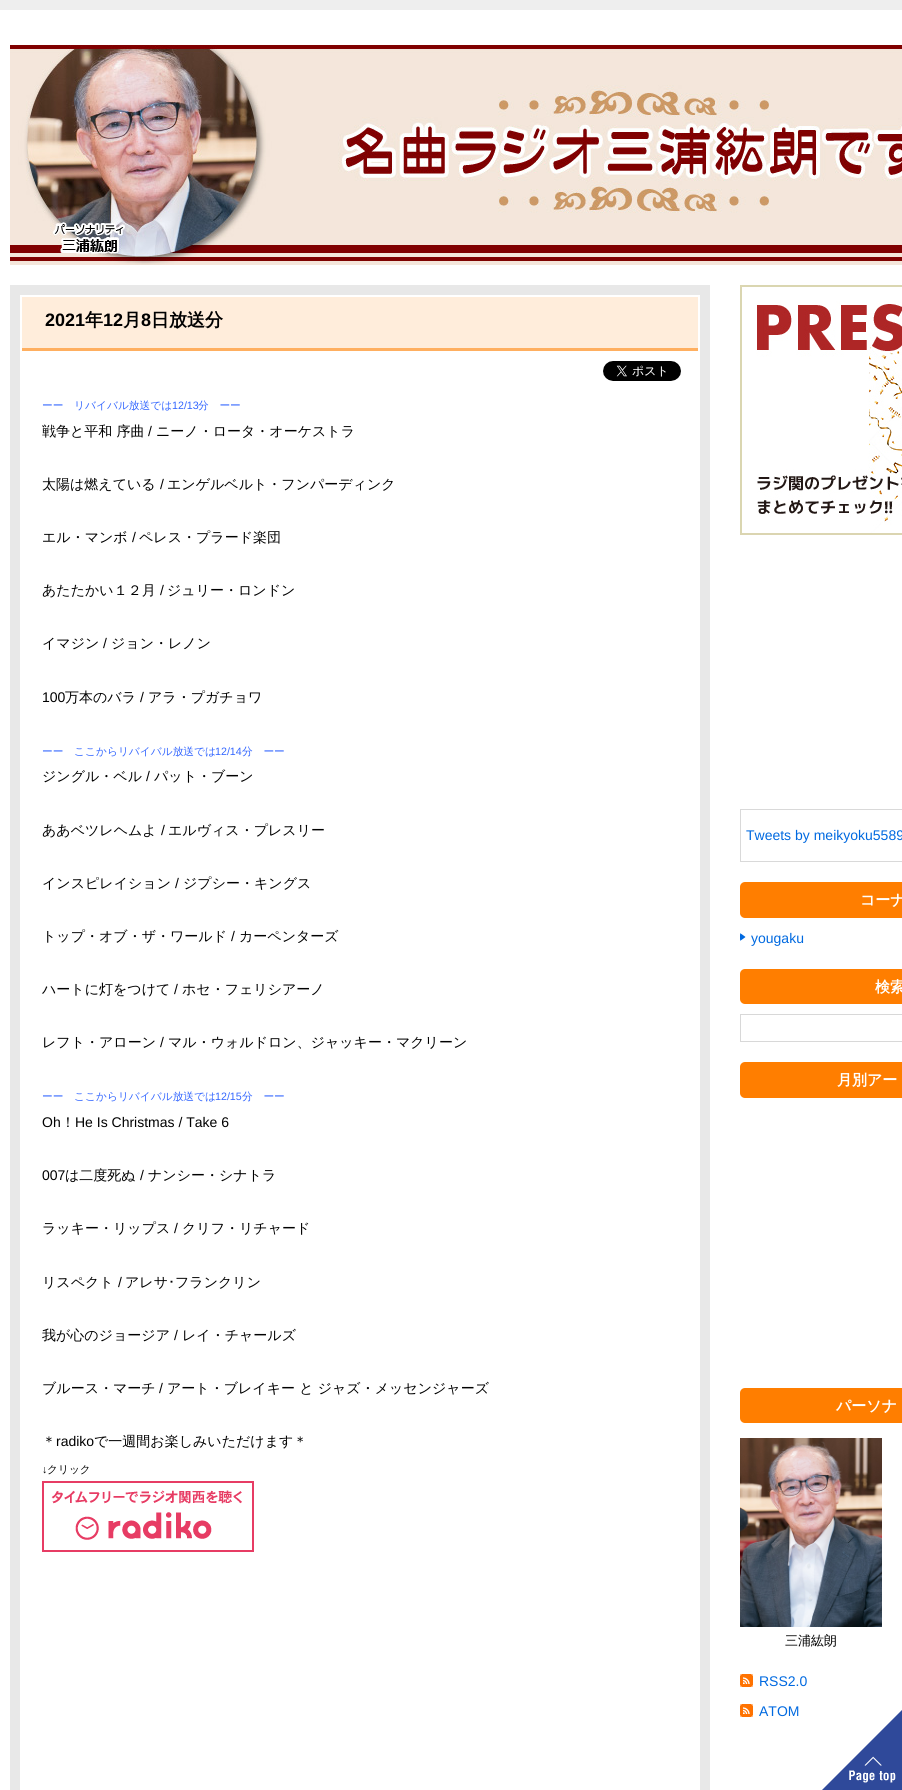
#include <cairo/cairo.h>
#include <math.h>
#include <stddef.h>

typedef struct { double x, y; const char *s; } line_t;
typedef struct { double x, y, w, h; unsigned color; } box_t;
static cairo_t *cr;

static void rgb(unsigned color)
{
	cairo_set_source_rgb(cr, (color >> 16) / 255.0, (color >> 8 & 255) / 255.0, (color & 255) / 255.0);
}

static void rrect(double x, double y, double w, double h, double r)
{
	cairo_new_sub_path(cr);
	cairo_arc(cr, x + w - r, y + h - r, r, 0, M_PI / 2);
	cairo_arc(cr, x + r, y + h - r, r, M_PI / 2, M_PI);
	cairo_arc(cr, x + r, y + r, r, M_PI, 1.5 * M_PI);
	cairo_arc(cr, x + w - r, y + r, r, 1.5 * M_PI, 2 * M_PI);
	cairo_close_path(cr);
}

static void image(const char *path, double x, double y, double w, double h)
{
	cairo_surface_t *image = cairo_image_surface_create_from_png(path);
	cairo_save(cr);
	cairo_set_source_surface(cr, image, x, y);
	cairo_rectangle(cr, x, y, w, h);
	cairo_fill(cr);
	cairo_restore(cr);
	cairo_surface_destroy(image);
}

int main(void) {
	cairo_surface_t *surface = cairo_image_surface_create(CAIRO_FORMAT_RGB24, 902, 1790);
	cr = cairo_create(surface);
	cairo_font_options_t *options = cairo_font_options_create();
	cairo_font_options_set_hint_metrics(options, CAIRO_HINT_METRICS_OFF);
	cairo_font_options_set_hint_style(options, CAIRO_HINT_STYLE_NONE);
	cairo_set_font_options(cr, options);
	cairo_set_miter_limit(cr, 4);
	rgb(0xffffff);
	cairo_paint(cr);
	rgb(0xeeeeee);
	cairo_rectangle(cr, 0, 0, 902, 10);
	cairo_fill(cr);
	image("img/1.png", 10, 45, 892, 220);
	{
		static const box_t items[] = {
			{10, 285, 700, 1505, 0xe8e8e8},
			{20, 295, 680, 1495, 0xffffff},
			{22, 297, 676, 51, 0xffeddb},
			{22, 348, 676, 3, 0xffaf60},
		};
		for (size_t i = 0; i < sizeof items / sizeof *items; i++) {
			rgb(items[i].color);
			cairo_rectangle(cr, items[i].x, items[i].y, items[i].w, items[i].h);
			cairo_fill(cr);
		}
	}
	image("img/2.png", 603, 361, 78, 20);
	image("img/3.png", 42, 1481, 212, 71);
	image("img/4.png", 740, 285, 162, 250);
	cairo_rectangle(cr, 740.5, 809.5, 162, 52);
	rgb(0xd9d9d9);
	cairo_set_line_width(cr, 1);
	cairo_stroke(cr);
	rgb(0xff7e00);
	rrect(740, 882, 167, 36, 5);
	cairo_fill(cr);
	image("img/5.png", 740, 933, 6, 8);
	rrect(740, 969, 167, 35, 5);
	cairo_fill(cr);
	cairo_rectangle(cr, 740.5, 1014.5, 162, 27);
	rgb(0xd8d8d8);
	cairo_stroke(cr);
	rgb(0xff7e00);
	rrect(740, 1062, 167, 36, 5);
	cairo_fill(cr);
	rrect(740, 1388, 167, 35, 5);
	cairo_fill(cr);
	image("img/6.png", 740, 1438, 142, 189);
	image("img/7.png", 740, 1674, 13, 13);
	image("img/7.png", 740, 1704, 13, 13);
	image("img/8.png", 822, 1710, 80, 80);
	cairo_select_font_face(cr, "Liberation Sans", CAIRO_FONT_SLANT_NORMAL, CAIRO_FONT_WEIGHT_BOLD);
	cairo_set_font_size(cr, 18);
	rgb(0x000000);
	cairo_move_to(cr, 45, 326);
	cairo_show_text(cr, "2021");
	cairo_select_font_face(cr, "WenQuanYi Zen Hei", CAIRO_FONT_SLANT_NORMAL, CAIRO_FONT_WEIGHT_BOLD);
	cairo_move_to(cr, 85, 326);
	cairo_show_text(cr, "年");
	cairo_select_font_face(cr, "Liberation Sans", CAIRO_FONT_SLANT_NORMAL, CAIRO_FONT_WEIGHT_BOLD);
	cairo_move_to(cr, 103, 326);
	cairo_show_text(cr, "12");
	cairo_select_font_face(cr, "WenQuanYi Zen Hei", CAIRO_FONT_SLANT_NORMAL, CAIRO_FONT_WEIGHT_BOLD);
	cairo_move_to(cr, 123, 326);
	cairo_show_text(cr, "月");
	cairo_select_font_face(cr, "Liberation Sans", CAIRO_FONT_SLANT_NORMAL, CAIRO_FONT_WEIGHT_BOLD);
	cairo_move_to(cr, 141, 326);
	cairo_show_text(cr, "8");
	cairo_select_font_face(cr, "WenQuanYi Zen Hei", CAIRO_FONT_SLANT_NORMAL, CAIRO_FONT_WEIGHT_BOLD);
	cairo_move_to(cr, 151, 326);
	cairo_show_text(cr, "日放送分");
	cairo_select_font_face(cr, "WenQuanYi Zen Hei Medium", CAIRO_FONT_SLANT_NORMAL, CAIRO_FONT_WEIGHT_NORMAL);
	cairo_set_font_size(cr, 10.7);
	rgb(0x3366ff);
	cairo_move_to(cr, 42, 409);
	cairo_show_text(cr, "ーー　リバイバル放送では");
	cairo_select_font_face(cr, "Liberation Sans", CAIRO_FONT_SLANT_NORMAL, CAIRO_FONT_WEIGHT_NORMAL);
	cairo_move_to(cr, 172, 409);
	cairo_show_text(cr, "12/13");
	cairo_select_font_face(cr, "WenQuanYi Zen Hei Medium", CAIRO_FONT_SLANT_NORMAL, CAIRO_FONT_WEIGHT_NORMAL);
	cairo_move_to(cr, 198, 409);
	cairo_show_text(cr, "分　ーー");
	cairo_set_font_size(cr, 14);
	rgb(0x000000);
	cairo_move_to(cr, 42, 436);
	cairo_show_text(cr, "戦争と平和 序曲");
	cairo_select_font_face(cr, "Liberation Sans", CAIRO_FONT_SLANT_NORMAL, CAIRO_FONT_WEIGHT_NORMAL);
	cairo_move_to(cr, 148, 436);
	cairo_show_text(cr, "/");
	cairo_select_font_face(cr, "WenQuanYi Zen Hei Medium", CAIRO_FONT_SLANT_NORMAL, CAIRO_FONT_WEIGHT_NORMAL);
	cairo_move_to(cr, 156, 436);
	cairo_show_text(cr, "ニーノ・ロータ・オーケストラ");
	cairo_move_to(cr, 42, 489);
	cairo_show_text(cr, "太陽は燃えている");
	cairo_select_font_face(cr, "Liberation Sans", CAIRO_FONT_SLANT_NORMAL, CAIRO_FONT_WEIGHT_NORMAL);
	cairo_move_to(cr, 160, 489);
	cairo_show_text(cr, "/");
	cairo_select_font_face(cr, "WenQuanYi Zen Hei Medium", CAIRO_FONT_SLANT_NORMAL, CAIRO_FONT_WEIGHT_NORMAL);
	cairo_move_to(cr, 167, 489);
	cairo_show_text(cr, "エンゲルベルト・フンパーディンク");
	cairo_move_to(cr, 42, 542);
	cairo_show_text(cr, "エル・マンボ");
	cairo_select_font_face(cr, "Liberation Sans", CAIRO_FONT_SLANT_NORMAL, CAIRO_FONT_WEIGHT_NORMAL);
	cairo_move_to(cr, 132, 542);
	cairo_show_text(cr, "/");
	cairo_select_font_face(cr, "WenQuanYi Zen Hei Medium", CAIRO_FONT_SLANT_NORMAL, CAIRO_FONT_WEIGHT_NORMAL);
	cairo_move_to(cr, 139, 542);
	cairo_show_text(cr, "ペレス・プラード楽団");
	cairo_move_to(cr, 42, 595);
	cairo_show_text(cr, "あたたかい１２月");
	cairo_select_font_face(cr, "Liberation Sans", CAIRO_FONT_SLANT_NORMAL, CAIRO_FONT_WEIGHT_NORMAL);
	cairo_move_to(cr, 160, 595);
	cairo_show_text(cr, "/");
	cairo_select_font_face(cr, "WenQuanYi Zen Hei Medium", CAIRO_FONT_SLANT_NORMAL, CAIRO_FONT_WEIGHT_NORMAL);
	cairo_move_to(cr, 167, 595);
	cairo_show_text(cr, "ジュリー・ロンドン");
	cairo_move_to(cr, 42, 648);
	cairo_show_text(cr, "イマジン");
	cairo_select_font_face(cr, "Liberation Sans", CAIRO_FONT_SLANT_NORMAL, CAIRO_FONT_WEIGHT_NORMAL);
	cairo_move_to(cr, 103, 648);
	cairo_show_text(cr, "/");
	cairo_select_font_face(cr, "WenQuanYi Zen Hei Medium", CAIRO_FONT_SLANT_NORMAL, CAIRO_FONT_WEIGHT_NORMAL);
	cairo_move_to(cr, 111, 648);
	cairo_show_text(cr, "ジョン・レノン");
	cairo_select_font_face(cr, "Liberation Sans", CAIRO_FONT_SLANT_NORMAL, CAIRO_FONT_WEIGHT_NORMAL);
	cairo_move_to(cr, 42, 702);
	cairo_show_text(cr, "100");
	cairo_select_font_face(cr, "WenQuanYi Zen Hei Medium", CAIRO_FONT_SLANT_NORMAL, CAIRO_FONT_WEIGHT_NORMAL);
	cairo_move_to(cr, 65, 702);
	cairo_show_text(cr, "万本のバラ");
	cairo_select_font_face(cr, "Liberation Sans", CAIRO_FONT_SLANT_NORMAL, CAIRO_FONT_WEIGHT_NORMAL);
	cairo_move_to(cr, 140, 702);
	cairo_show_text(cr, "/");
	cairo_select_font_face(cr, "WenQuanYi Zen Hei Medium", CAIRO_FONT_SLANT_NORMAL, CAIRO_FONT_WEIGHT_NORMAL);
	cairo_move_to(cr, 148, 702);
	cairo_show_text(cr, "アラ・プガチョワ");
	cairo_set_font_size(cr, 10.7);
	rgb(0x3366ff);
	cairo_move_to(cr, 42, 755);
	cairo_show_text(cr, "ーー　ここからリバイバル放送では");
	cairo_select_font_face(cr, "Liberation Sans", CAIRO_FONT_SLANT_NORMAL, CAIRO_FONT_WEIGHT_NORMAL);
	cairo_move_to(cr, 215, 755);
	cairo_show_text(cr, "12/14");
	cairo_select_font_face(cr, "WenQuanYi Zen Hei Medium", CAIRO_FONT_SLANT_NORMAL, CAIRO_FONT_WEIGHT_NORMAL);
	cairo_move_to(cr, 242, 755);
	cairo_show_text(cr, "分　ーー");
	cairo_set_font_size(cr, 14);
	rgb(0x000000);
	cairo_move_to(cr, 42, 781);
	cairo_show_text(cr, "ジングル・ベル");
	cairo_select_font_face(cr, "Liberation Sans", CAIRO_FONT_SLANT_NORMAL, CAIRO_FONT_WEIGHT_NORMAL);
	cairo_move_to(cr, 146, 781);
	cairo_show_text(cr, "/");
	cairo_select_font_face(cr, "WenQuanYi Zen Hei Medium", CAIRO_FONT_SLANT_NORMAL, CAIRO_FONT_WEIGHT_NORMAL);
	cairo_move_to(cr, 154, 781);
	cairo_show_text(cr, "パット・ブーン");
	cairo_move_to(cr, 42, 835);
	cairo_show_text(cr, "ああベツレヘムよ");
	cairo_select_font_face(cr, "Liberation Sans", CAIRO_FONT_SLANT_NORMAL, CAIRO_FONT_WEIGHT_NORMAL);
	cairo_move_to(cr, 161, 835);
	cairo_show_text(cr, "/");
	cairo_select_font_face(cr, "WenQuanYi Zen Hei Medium", CAIRO_FONT_SLANT_NORMAL, CAIRO_FONT_WEIGHT_NORMAL);
	cairo_move_to(cr, 168, 835);
	cairo_show_text(cr, "エルヴィス・プレスリー");
	cairo_move_to(cr, 42, 888);
	cairo_show_text(cr, "インスピレイション");
	cairo_select_font_face(cr, "Liberation Sans", CAIRO_FONT_SLANT_NORMAL, CAIRO_FONT_WEIGHT_NORMAL);
	cairo_move_to(cr, 175, 888);
	cairo_show_text(cr, "/");
	cairo_select_font_face(cr, "WenQuanYi Zen Hei Medium", CAIRO_FONT_SLANT_NORMAL, CAIRO_FONT_WEIGHT_NORMAL);
	cairo_move_to(cr, 183, 888);
	cairo_show_text(cr, "ジプシー・キングス");
	cairo_move_to(cr, 42, 941);
	cairo_show_text(cr, "トップ・オブ・ザ・ワールド");
	cairo_select_font_face(cr, "Liberation Sans", CAIRO_FONT_SLANT_NORMAL, CAIRO_FONT_WEIGHT_NORMAL);
	cairo_move_to(cr, 231, 941);
	cairo_show_text(cr, "/");
	cairo_select_font_face(cr, "WenQuanYi Zen Hei Medium", CAIRO_FONT_SLANT_NORMAL, CAIRO_FONT_WEIGHT_NORMAL);
	cairo_move_to(cr, 239, 941);
	cairo_show_text(cr, "カーペンターズ");
	cairo_move_to(cr, 42, 994);
	cairo_show_text(cr, "ハートに灯をつけて");
	cairo_select_font_face(cr, "Liberation Sans", CAIRO_FONT_SLANT_NORMAL, CAIRO_FONT_WEIGHT_NORMAL);
	cairo_move_to(cr, 174, 994);
	cairo_show_text(cr, "/");
	cairo_select_font_face(cr, "WenQuanYi Zen Hei Medium", CAIRO_FONT_SLANT_NORMAL, CAIRO_FONT_WEIGHT_NORMAL);
	cairo_move_to(cr, 182, 994);
	cairo_show_text(cr, "ホセ・フェリシアーノ");
	cairo_move_to(cr, 42, 1047);
	cairo_show_text(cr, "レフト・アローン");
	cairo_select_font_face(cr, "Liberation Sans", CAIRO_FONT_SLANT_NORMAL, CAIRO_FONT_WEIGHT_NORMAL);
	cairo_move_to(cr, 160, 1047);
	cairo_show_text(cr, "/");
	cairo_select_font_face(cr, "WenQuanYi Zen Hei Medium", CAIRO_FONT_SLANT_NORMAL, CAIRO_FONT_WEIGHT_NORMAL);
	cairo_move_to(cr, 168, 1047);
	cairo_show_text(cr, "マル・ウォルドロン、ジャッキー・マクリーン");
	cairo_set_font_size(cr, 10.7);
	rgb(0x3366ff);
	cairo_move_to(cr, 42, 1100);
	cairo_show_text(cr, "ーー　ここからリバイバル放送では");
	cairo_select_font_face(cr, "Liberation Sans", CAIRO_FONT_SLANT_NORMAL, CAIRO_FONT_WEIGHT_NORMAL);
	cairo_move_to(cr, 215, 1100);
	cairo_show_text(cr, "12/15");
	cairo_select_font_face(cr, "WenQuanYi Zen Hei Medium", CAIRO_FONT_SLANT_NORMAL, CAIRO_FONT_WEIGHT_NORMAL);
	cairo_move_to(cr, 242, 1100);
	cairo_show_text(cr, "分　ーー");
	cairo_select_font_face(cr, "Liberation Sans", CAIRO_FONT_SLANT_NORMAL, CAIRO_FONT_WEIGHT_NORMAL);
	cairo_set_font_size(cr, 14);
	rgb(0x000000);
	cairo_move_to(cr, 42, 1127);
	cairo_show_text(cr, "Oh");
	cairo_select_font_face(cr, "WenQuanYi Zen Hei Medium", CAIRO_FONT_SLANT_NORMAL, CAIRO_FONT_WEIGHT_NORMAL);
	cairo_move_to(cr, 61, 1127);
	cairo_show_text(cr, "！");
	cairo_select_font_face(cr, "Liberation Sans", CAIRO_FONT_SLANT_NORMAL, CAIRO_FONT_WEIGHT_NORMAL);
	cairo_move_to(cr, 75, 1127);
	cairo_show_text(cr, "He Is Christmas / Take 6");
	cairo_move_to(cr, 42, 1180);
	cairo_show_text(cr, "007");
	cairo_select_font_face(cr, "WenQuanYi Zen Hei Medium", CAIRO_FONT_SLANT_NORMAL, CAIRO_FONT_WEIGHT_NORMAL);
	cairo_move_to(cr, 65, 1180);
	cairo_show_text(cr, "は二度死ぬ");
	cairo_select_font_face(cr, "Liberation Sans", CAIRO_FONT_SLANT_NORMAL, CAIRO_FONT_WEIGHT_NORMAL);
	cairo_move_to(cr, 140, 1180);
	cairo_show_text(cr, "/");
	cairo_select_font_face(cr, "WenQuanYi Zen Hei Medium", CAIRO_FONT_SLANT_NORMAL, CAIRO_FONT_WEIGHT_NORMAL);
	cairo_move_to(cr, 148, 1180);
	cairo_show_text(cr, "ナンシー・シナトラ");
	cairo_move_to(cr, 42, 1233);
	cairo_show_text(cr, "ラッキー・リップス");
	cairo_select_font_face(cr, "Liberation Sans", CAIRO_FONT_SLANT_NORMAL, CAIRO_FONT_WEIGHT_NORMAL);
	cairo_move_to(cr, 174, 1233);
	cairo_show_text(cr, "/");
	cairo_select_font_face(cr, "WenQuanYi Zen Hei Medium", CAIRO_FONT_SLANT_NORMAL, CAIRO_FONT_WEIGHT_NORMAL);
	cairo_move_to(cr, 182, 1233);
	cairo_show_text(cr, "クリフ・リチャード");
	cairo_move_to(cr, 42, 1287);
	cairo_show_text(cr, "リスペクト");
	cairo_select_font_face(cr, "Liberation Sans", CAIRO_FONT_SLANT_NORMAL, CAIRO_FONT_WEIGHT_NORMAL);
	cairo_move_to(cr, 118, 1287);
	cairo_show_text(cr, "/");
	cairo_select_font_face(cr, "WenQuanYi Zen Hei Medium", CAIRO_FONT_SLANT_NORMAL, CAIRO_FONT_WEIGHT_NORMAL);
	cairo_move_to(cr, 125, 1287);
	cairo_show_text(cr, "アレサ");
	cairo_select_font_face(cr, "IPAPGothic", CAIRO_FONT_SLANT_NORMAL, CAIRO_FONT_WEIGHT_NORMAL);
	cairo_move_to(cr, 168, 1287);
	cairo_show_text(cr, "･");
	cairo_select_font_face(cr, "WenQuanYi Zen Hei Medium", CAIRO_FONT_SLANT_NORMAL, CAIRO_FONT_WEIGHT_NORMAL);
	cairo_move_to(cr, 175, 1287);
	cairo_show_text(cr, "フランクリン");
	cairo_move_to(cr, 42, 1340);
	cairo_show_text(cr, "我が心のジョージア");
	cairo_select_font_face(cr, "Liberation Sans", CAIRO_FONT_SLANT_NORMAL, CAIRO_FONT_WEIGHT_NORMAL);
	cairo_move_to(cr, 174, 1340);
	cairo_show_text(cr, "/");
	cairo_select_font_face(cr, "WenQuanYi Zen Hei Medium", CAIRO_FONT_SLANT_NORMAL, CAIRO_FONT_WEIGHT_NORMAL);
	cairo_move_to(cr, 182, 1340);
	cairo_show_text(cr, "レイ・チャールズ");
	cairo_move_to(cr, 42, 1393);
	cairo_show_text(cr, "ブルース・マーチ");
	cairo_select_font_face(cr, "Liberation Sans", CAIRO_FONT_SLANT_NORMAL, CAIRO_FONT_WEIGHT_NORMAL);
	cairo_move_to(cr, 159, 1393);
	cairo_show_text(cr, "/");
	cairo_select_font_face(cr, "WenQuanYi Zen Hei Medium", CAIRO_FONT_SLANT_NORMAL, CAIRO_FONT_WEIGHT_NORMAL);
	cairo_move_to(cr, 167, 1393);
	cairo_show_text(cr, "アート・ブレイキー と ジャズ・メッセンジャーズ");
	cairo_move_to(cr, 42, 1446);
	cairo_show_text(cr, "＊");
	cairo_select_font_face(cr, "Liberation Sans", CAIRO_FONT_SLANT_NORMAL, CAIRO_FONT_WEIGHT_NORMAL);
	cairo_move_to(cr, 56, 1446);
	cairo_show_text(cr, "radiko");
	cairo_select_font_face(cr, "WenQuanYi Zen Hei Medium", CAIRO_FONT_SLANT_NORMAL, CAIRO_FONT_WEIGHT_NORMAL);
	cairo_move_to(cr, 94, 1446);
	cairo_show_text(cr, "で一週間お楽しみいただけます＊");
	cairo_select_font_face(cr, "Liberation Sans", CAIRO_FONT_SLANT_NORMAL, CAIRO_FONT_WEIGHT_NORMAL);
	cairo_set_font_size(cr, 10.7);
	cairo_move_to(cr, 42, 1473);
	cairo_show_text(cr, "↓");
	cairo_select_font_face(cr, "WenQuanYi Zen Hei Medium", CAIRO_FONT_SLANT_NORMAL, CAIRO_FONT_WEIGHT_NORMAL);
	cairo_move_to(cr, 47, 1473);
	cairo_show_text(cr, "クリック");
	cairo_select_font_face(cr, "Liberation Sans", CAIRO_FONT_SLANT_NORMAL, CAIRO_FONT_WEIGHT_NORMAL);
	cairo_set_font_size(cr, 14);
	rgb(0x0069e0);
	cairo_move_to(cr, 746, 840);
	cairo_show_text(cr, "Tweets by meikyoku5589");
	cairo_select_font_face(cr, "WenQuanYi Zen Hei", CAIRO_FONT_SLANT_NORMAL, CAIRO_FONT_WEIGHT_BOLD);
	cairo_set_font_size(cr, 15);
	rgb(0xffffff);
	cairo_move_to(cr, 860, 905);
	cairo_show_text(cr, "コーナ");
	cairo_select_font_face(cr, "Liberation Sans", CAIRO_FONT_SLANT_NORMAL, CAIRO_FONT_WEIGHT_NORMAL);
	cairo_set_font_size(cr, 14);
	rgb(0x0069e0);
	cairo_move_to(cr, 751, 943);
	cairo_show_text(cr, "yougaku");
	cairo_select_font_face(cr, "WenQuanYi Zen Hei", CAIRO_FONT_SLANT_NORMAL, CAIRO_FONT_WEIGHT_BOLD);
	cairo_set_font_size(cr, 15);
	rgb(0xffffff);
	{
		static const line_t items[] = {
			{875, 992, "検索"},
			{837, 1085, "月別アー"},
			{836, 1411, "パーソナ"},
		};
		for (size_t i = 0; i < sizeof items / sizeof *items; i++) {
			cairo_move_to(cr, items[i].x, items[i].y);
			cairo_show_text(cr, items[i].s);
		}
	}
	cairo_select_font_face(cr, "WenQuanYi Zen Hei Medium", CAIRO_FONT_SLANT_NORMAL, CAIRO_FONT_WEIGHT_NORMAL);
	cairo_set_font_size(cr, 13);
	rgb(0x000000);
	cairo_move_to(cr, 785, 1645);
	cairo_show_text(cr, "三浦紘朗");
	cairo_select_font_face(cr, "Liberation Sans", CAIRO_FONT_SLANT_NORMAL, CAIRO_FONT_WEIGHT_NORMAL);
	cairo_set_font_size(cr, 14);
	rgb(0x0069e0);
	cairo_move_to(cr, 759, 1686);
	cairo_show_text(cr, "RSS2.0");
	cairo_move_to(cr, 759, 1716);
	cairo_show_text(cr, "ATOM");
	cairo_surface_write_to_png(surface, "page.png");
	cairo_font_options_destroy(options);
	cairo_destroy(cr);
	cairo_surface_destroy(surface);
	return 0;
}
